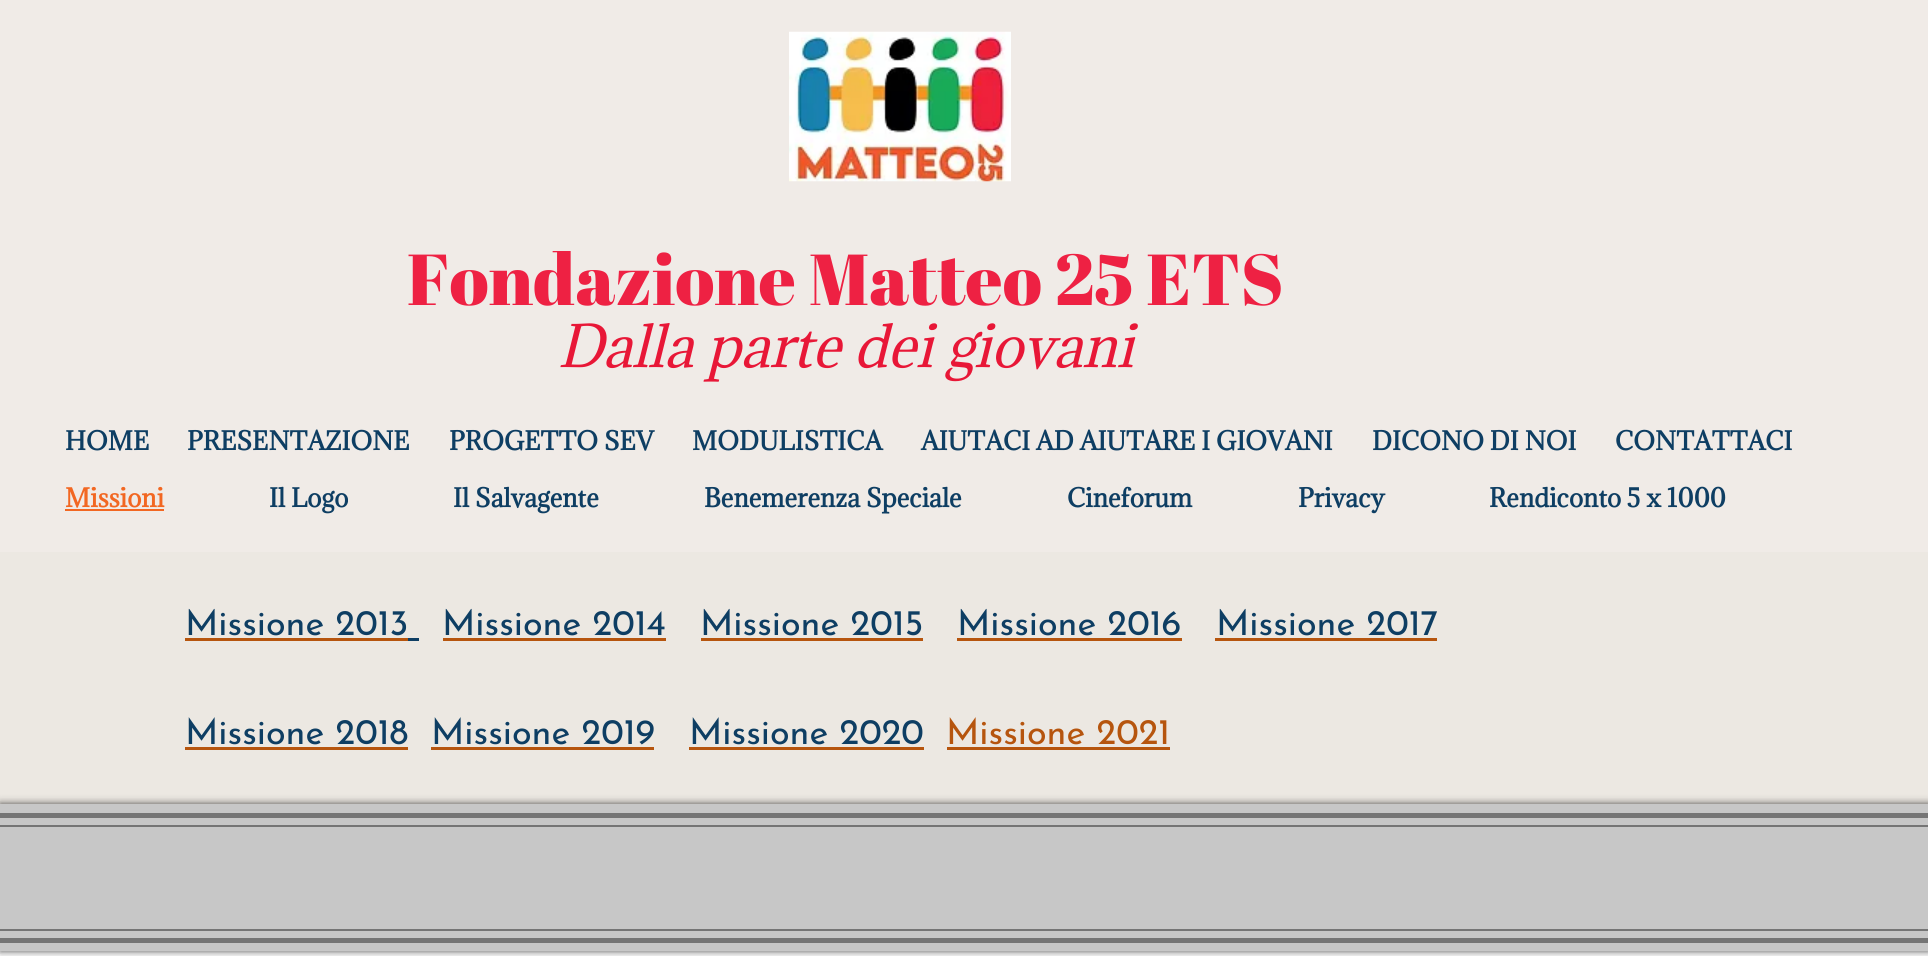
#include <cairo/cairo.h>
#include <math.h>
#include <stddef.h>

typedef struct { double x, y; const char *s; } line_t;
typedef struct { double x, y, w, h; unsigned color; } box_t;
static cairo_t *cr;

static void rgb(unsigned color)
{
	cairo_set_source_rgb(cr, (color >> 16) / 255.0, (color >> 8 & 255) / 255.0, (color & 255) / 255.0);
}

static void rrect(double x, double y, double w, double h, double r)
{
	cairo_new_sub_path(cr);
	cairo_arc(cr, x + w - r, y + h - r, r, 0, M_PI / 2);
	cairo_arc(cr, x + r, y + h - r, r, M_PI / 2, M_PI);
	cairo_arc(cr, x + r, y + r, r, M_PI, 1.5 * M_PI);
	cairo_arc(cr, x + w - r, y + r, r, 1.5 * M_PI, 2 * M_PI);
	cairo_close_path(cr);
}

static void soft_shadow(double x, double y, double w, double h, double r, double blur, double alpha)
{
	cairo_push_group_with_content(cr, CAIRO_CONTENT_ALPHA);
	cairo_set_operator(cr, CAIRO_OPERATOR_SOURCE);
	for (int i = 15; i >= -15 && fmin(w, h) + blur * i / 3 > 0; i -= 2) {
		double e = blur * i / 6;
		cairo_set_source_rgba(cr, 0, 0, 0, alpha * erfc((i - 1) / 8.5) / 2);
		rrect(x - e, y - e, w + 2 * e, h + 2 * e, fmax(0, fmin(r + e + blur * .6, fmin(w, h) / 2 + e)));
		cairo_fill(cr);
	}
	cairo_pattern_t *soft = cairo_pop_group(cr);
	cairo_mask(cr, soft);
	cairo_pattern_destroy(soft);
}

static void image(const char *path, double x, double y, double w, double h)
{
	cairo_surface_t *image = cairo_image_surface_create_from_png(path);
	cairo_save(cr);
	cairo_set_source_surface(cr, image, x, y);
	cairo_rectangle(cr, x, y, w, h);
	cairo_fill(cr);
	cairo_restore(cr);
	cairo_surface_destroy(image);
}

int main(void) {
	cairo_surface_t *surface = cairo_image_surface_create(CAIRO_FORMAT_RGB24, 1928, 956);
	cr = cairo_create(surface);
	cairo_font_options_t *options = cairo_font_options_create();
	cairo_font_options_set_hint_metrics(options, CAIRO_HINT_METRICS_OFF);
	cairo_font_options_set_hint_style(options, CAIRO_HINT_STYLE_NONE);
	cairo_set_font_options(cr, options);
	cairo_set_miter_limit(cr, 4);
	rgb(0xffffff);
	cairo_paint(cr);
	{
		static const box_t items[] = {
			{0, 552, 1928, 252, 0xece8e2},
			{185, 638, 223, 3, 0xb6550e},
			{408, 638, 11, 3, 0x0e3e63},
			{443, 638, 223, 3, 0xb6550e},
			{701, 638, 222, 3, 0xb6550e},
			{957, 638, 225, 3, 0xb6550e},
			{1215, 638, 222, 3, 0xb6550e},
			{185, 747, 223, 3, 0xb6550e},
			{431, 747, 223, 3, 0xb6550e},
			{689, 747, 235, 3, 0xb6550e},
			{947, 747, 223, 3, 0xb6550e},
		};
		for (size_t i = 0; i < sizeof items / sizeof *items; i++) {
			rgb(items[i].color);
			cairo_rectangle(cr, items[i].x, items[i].y, items[i].w, items[i].h);
			cairo_fill(cr);
		}
	}
	rgb(0x000000);
	soft_shadow(0, 804, 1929, 147, 0, 4, 0.7);
	{
		static const box_t items[] = {
			{0, 804, 1928, 147, 0xc7c7c7},
			{0, 813, 1928, 5, 0x757575},
			{0, 938, 1928, 5, 0x757575},
			{0, 825, 1928, 2, 0x757575},
			{0, 929, 1928, 2, 0x757575},
		};
		for (size_t i = 0; i < sizeof items / sizeof *items; i++) {
			rgb(items[i].color);
			cairo_rectangle(cr, items[i].x, items[i].y, items[i].w, items[i].h);
			cairo_fill(cr);
		}
	}
	cairo_select_font_face(cr, "Josefin Sans", CAIRO_FONT_SLANT_NORMAL, CAIRO_FONT_WEIGHT_NORMAL);
	cairo_set_font_size(cr, 36);
	rgb(0x0e3e63);
	{
		static const line_t items[] = {
			{185, 635, "Missione 2013"},
			{442, 635, "Missione 2014"},
			{700, 635, "Missione 2015"},
			{957, 635, "Missione 2016"},
			{1216, 635, "Missione 2017"},
		};
		for (size_t i = 0; i < sizeof items / sizeof *items; i++) {
			cairo_move_to(cr, items[i].x, items[i].y);
			cairo_show_text(cr, items[i].s);
		}
	}
	cairo_set_source_rgba(cr, 0.925, 0.91, 0.886, 0.6);
	cairo_rectangle(cr, 0, 0, 1928, 609);
	cairo_fill(cr);
	cairo_rectangle(cr, 0, 0, 1928, 609);
	cairo_fill(cr);
	cairo_select_font_face(cr, "Adamina", CAIRO_FONT_SLANT_NORMAL, CAIRO_FONT_WEIGHT_BOLD);
	cairo_set_font_size(cr, 24);
	rgb(0x0e3e63);
	{
		static const line_t items[] = {
			{1489, 507, "Rendiconto 5 x 1000"},
			{1298, 507, "Privacy"},
			{1067, 507, "Cineforum"},
			{704, 507, "Benemerenza Speciale"},
			{453, 507, "Il Salvagente"},
			{269, 507, "Il Logo"},
		};
		for (size_t i = 0; i < sizeof items / sizeof *items; i++) {
			cairo_move_to(cr, items[i].x, items[i].y);
			cairo_show_text(cr, items[i].s);
		}
	}
	rgb(0xf26722);
	cairo_move_to(cr, 65, 507);
	cairo_show_text(cr, "Missioni");
	cairo_rectangle(cr, 65, 509, 99, 2);
	cairo_fill(cr);
	rgb(0x0e3e63);
	{
		static const line_t items[] = {
			{1615, 450, "CONTATTACI"},
			{1372, 450, "DICONO DI NOI"},
			{921, 450, "AIUTACI AD AIUTARE I GIOVANI"},
			{692, 450, "MODULISTICA"},
			{449, 450, "PROGETTO SEV"},
			{187, 450, "PRESENTAZIONE"},
			{65, 450, "HOME"},
		};
		for (size_t i = 0; i < sizeof items / sizeof *items; i++) {
			cairo_move_to(cr, items[i].x, items[i].y);
			cairo_show_text(cr, items[i].s);
		}
	}
	cairo_select_font_face(cr, "Adamina", CAIRO_FONT_SLANT_ITALIC, CAIRO_FONT_WEIGHT_NORMAL);
	cairo_set_font_size(cr, 54);
	rgb(0xe81737);
	cairo_move_to(cr, 558, 367);
	cairo_show_text(cr, "Dalla parte dei giovani");
	cairo_select_font_face(cr, "Abril Fatface", CAIRO_FONT_SLANT_NORMAL, CAIRO_FONT_WEIGHT_NORMAL);
	cairo_set_font_size(cr, 72);
	rgb(0xee2143);
	cairo_move_to(cr, 407, 305);
	cairo_show_text(cr, "Fondazione Matteo 25 ETS");
	image("img/1.png", 789, 31, 222, 151);
	cairo_select_font_face(cr, "Josefin Sans", CAIRO_FONT_SLANT_NORMAL, CAIRO_FONT_WEIGHT_NORMAL);
	cairo_set_font_size(cr, 36);
	rgb(0x0e3e63);
	{
		static const line_t items[] = {
			{185, 744, "Missione 2018"},
			{431, 744, "Missione 2019"},
			{689, 744, "Missione 2020"},
		};
		for (size_t i = 0; i < sizeof items / sizeof *items; i++) {
			cairo_move_to(cr, items[i].x, items[i].y);
			cairo_show_text(cr, items[i].s);
		}
	}
	rgb(0xb6550e);
	cairo_move_to(cr, 946, 744);
	cairo_show_text(cr, "Missione 2021");
	cairo_surface_write_to_png(surface, "page.png");
	cairo_font_options_destroy(options);
	cairo_destroy(cr);
	cairo_surface_destroy(surface);
	return 0;
}
